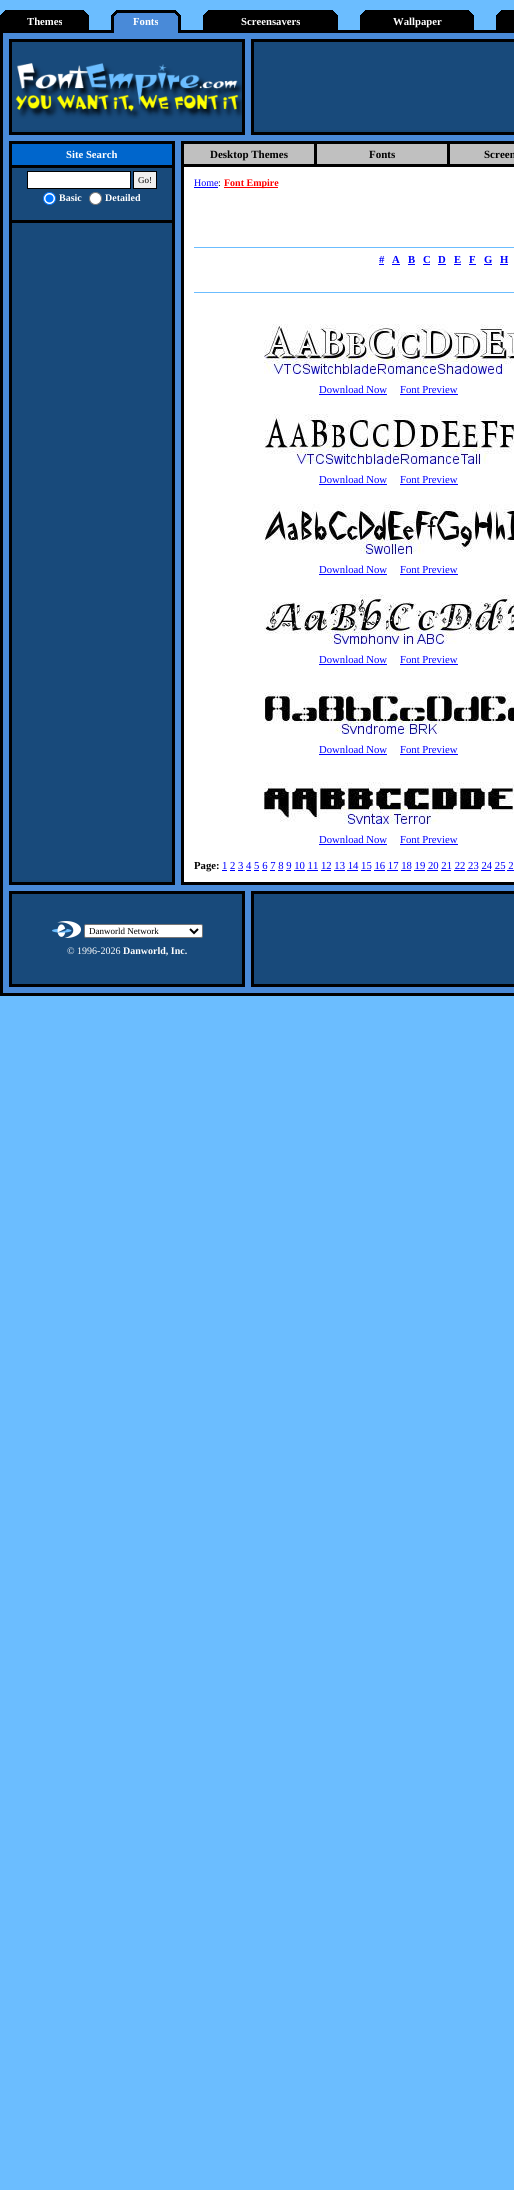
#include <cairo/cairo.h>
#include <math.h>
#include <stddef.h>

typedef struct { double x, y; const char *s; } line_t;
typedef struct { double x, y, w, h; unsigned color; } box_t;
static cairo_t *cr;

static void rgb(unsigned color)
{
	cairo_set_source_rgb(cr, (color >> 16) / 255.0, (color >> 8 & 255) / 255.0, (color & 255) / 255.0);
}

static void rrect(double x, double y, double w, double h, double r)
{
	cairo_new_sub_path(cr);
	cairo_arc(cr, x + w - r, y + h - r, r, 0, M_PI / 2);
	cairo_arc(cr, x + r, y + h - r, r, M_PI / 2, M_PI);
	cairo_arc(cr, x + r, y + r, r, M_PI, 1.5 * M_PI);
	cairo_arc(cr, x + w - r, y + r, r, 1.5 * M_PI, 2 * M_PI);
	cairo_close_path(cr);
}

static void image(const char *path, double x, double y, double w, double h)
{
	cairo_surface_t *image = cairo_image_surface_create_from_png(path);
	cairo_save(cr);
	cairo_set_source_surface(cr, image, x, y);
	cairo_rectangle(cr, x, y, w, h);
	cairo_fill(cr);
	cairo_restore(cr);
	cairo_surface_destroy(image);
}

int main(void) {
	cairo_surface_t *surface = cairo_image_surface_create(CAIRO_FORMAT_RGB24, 514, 2190);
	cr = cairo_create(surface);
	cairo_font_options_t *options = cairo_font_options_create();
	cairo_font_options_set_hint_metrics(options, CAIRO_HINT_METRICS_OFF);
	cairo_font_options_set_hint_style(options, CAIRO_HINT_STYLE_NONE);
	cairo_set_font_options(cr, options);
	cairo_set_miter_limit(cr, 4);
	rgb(0x6bbdff);
	cairo_paint(cr);
	rgb(0x000000);
	cairo_rectangle(cr, 0, 10, 514, 986);
	cairo_fill(cr);
	image("img/1.png", 0, 10, 5, 5);
	image("img/2.png", 84, 10, 5, 5);
	rgb(0x6bbdff);
	cairo_rectangle(cr, 89, 10, 22, 20);
	cairo_fill(cr);
	rgb(0x498ad8);
	cairo_rectangle(cr, 114, 13, 64, 20);
	cairo_fill(cr);
	image("img/3.png", 111, 10, 10, 23);
	image("img/4.png", 171, 10, 10, 23);
	rgb(0x6bbdff);
	cairo_rectangle(cr, 181, 10, 22, 20);
	cairo_fill(cr);
	image("img/1.png", 203, 10, 5, 5);
	image("img/2.png", 333, 10, 5, 5);
	cairo_rectangle(cr, 338, 10, 22, 20);
	cairo_fill(cr);
	image("img/1.png", 360, 10, 5, 5);
	image("img/2.png", 469, 10, 5, 5);
	cairo_rectangle(cr, 474, 10, 22, 20);
	cairo_fill(cr);
	image("img/1.png", 496, 10, 5, 5);
	{
		static const box_t items[] = {
			{3, 33, 511, 6, 0x498ad8},
			{3, 39, 6, 96, 0x498ad8},
			{245, 39, 6, 96, 0x498ad8},
			{12, 42, 230, 90, 0x184a7b},
		};
		for (size_t i = 0; i < sizeof items / sizeof *items; i++) {
			rgb(items[i].color);
			cairo_rectangle(cr, items[i].x, items[i].y, items[i].w, items[i].h);
			cairo_fill(cr);
		}
	}
	image("img/5.png", 15, 63, 227, 56);
	{
		static const box_t items[] = {
			{254, 42, 260, 90, 0x184a7b},
			{3, 135, 511, 6, 0x498ad8},
			{3, 141, 6, 744, 0x498ad8},
			{175, 141, 6, 744, 0x498ad8},
			{12, 168, 160, 714, 0x184a7b},
			{12, 144, 160, 21, 0x0066cc},
		};
		for (size_t i = 0; i < sizeof items / sizeof *items; i++) {
			rgb(items[i].color);
			cairo_rectangle(cr, items[i].x, items[i].y, items[i].w, items[i].h);
			cairo_fill(cr);
		}
	}
	rgb(0xffffff);
	cairo_rectangle(cr, 27.5, 171.5, 103, 17);
	cairo_fill_preserve(cr);
	rgb(0x000000);
	cairo_set_line_width(cr, 1);
	cairo_stroke(cr);
	rgb(0xefefef);
	cairo_rectangle(cr, 133.5, 171.5, 23, 17);
	cairo_fill_preserve(cr);
	rgb(0x000000);
	cairo_stroke(cr);
	rgb(0xffffff);
	cairo_arc(cr, 49.5, 198.5, 6, 0, 2 * M_PI);
	cairo_fill_preserve(cr);
	rgb(0x0075ff);
	cairo_stroke(cr);
	cairo_arc(cr, 49.5, 198.5, 4, 0, 2 * M_PI);
	cairo_fill(cr);
	rgb(0xffffff);
	cairo_arc(cr, 95.5, 198.5, 6, 0, 2 * M_PI);
	cairo_fill_preserve(cr);
	rgb(0x767676);
	cairo_stroke(cr);
	{
		static const box_t items[] = {
			{12, 220, 160, 3, 0x000000},
			{184, 167, 330, 715, 0xffffff},
			{184, 144, 130, 20, 0xc0c0c0},
			{317, 144, 130, 20, 0xc0c0c0},
			{450, 144, 64, 20, 0xc0c0c0},
			{194, 187, 24, 1, 0x0000ff},
			{224, 187, 54, 1, 0xff0000},
			{194, 247, 320, 1, 0x6bbdff},
			{379, 264, 5, 1, 0x0000ff},
			{392, 264, 8, 1, 0x0000ff},
			{408, 264, 7, 1, 0x0000ff},
			{423, 264, 7, 1, 0x0000ff},
			{438, 264, 8, 1, 0x0000ff},
			{454, 264, 7, 1, 0x0000ff},
			{469, 264, 7, 1, 0x0000ff},
			{484, 264, 8, 1, 0x0000ff},
			{500, 264, 8, 1, 0x0000ff},
			{194, 292, 320, 1, 0x6bbdff},
		};
		for (size_t i = 0; i < sizeof items / sizeof *items; i++) {
			rgb(items[i].color);
			cairo_rectangle(cr, items[i].x, items[i].y, items[i].w, items[i].h);
			cairo_fill(cr);
		}
	}
	image("img/6.png", 264, 324, 250, 50);
	rgb(0x0000ff);
	cairo_rectangle(cr, 319, 394, 68, 1);
	cairo_fill(cr);
	cairo_rectangle(cr, 400, 394, 58, 1);
	cairo_fill(cr);
	image("img/7.png", 264, 414, 250, 50);
	cairo_rectangle(cr, 319, 484, 68, 1);
	cairo_fill(cr);
	cairo_rectangle(cr, 400, 484, 58, 1);
	cairo_fill(cr);
	image("img/8.png", 264, 504, 250, 50);
	cairo_rectangle(cr, 319, 574, 68, 1);
	cairo_fill(cr);
	cairo_rectangle(cr, 400, 574, 58, 1);
	cairo_fill(cr);
	image("img/9.png", 264, 594, 250, 50);
	cairo_rectangle(cr, 319, 664, 68, 1);
	cairo_fill(cr);
	cairo_rectangle(cr, 400, 664, 58, 1);
	cairo_fill(cr);
	image("img/10.png", 264, 692, 250, 42);
	cairo_rectangle(cr, 319, 754, 68, 1);
	cairo_fill(cr);
	cairo_rectangle(cr, 400, 754, 58, 1);
	cairo_fill(cr);
	image("img/11.png", 264, 782, 250, 42);
	{
		static const box_t items[] = {
			{319, 844, 68, 1, 0x0000ff},
			{400, 844, 58, 1, 0x0000ff},
			{222, 870, 5, 1, 0x0000ff},
			{230, 870, 5, 1, 0x0000ff},
			{238, 870, 5, 1, 0x0000ff},
			{246, 870, 5, 1, 0x0000ff},
			{254, 870, 5, 1, 0x0000ff},
			{262, 870, 5, 1, 0x0000ff},
			{270, 870, 5, 1, 0x0000ff},
			{278, 870, 5, 1, 0x0000ff},
			{286, 870, 5, 1, 0x0000ff},
			{294, 870, 11, 1, 0x0000ff},
			{307, 870, 11, 1, 0x0000ff},
			{321, 870, 10, 1, 0x0000ff},
			{334, 870, 11, 1, 0x0000ff},
			{347, 870, 11, 1, 0x0000ff},
			{361, 870, 10, 1, 0x0000ff},
			{374, 870, 11, 1, 0x0000ff},
			{387, 870, 11, 1, 0x0000ff},
			{401, 870, 10, 1, 0x0000ff},
			{414, 870, 11, 1, 0x0000ff},
			{427, 870, 11, 1, 0x0000ff},
			{441, 870, 10, 1, 0x0000ff},
			{454, 870, 11, 1, 0x0000ff},
			{467, 870, 11, 1, 0x0000ff},
			{481, 870, 10, 1, 0x0000ff},
			{494, 870, 11, 1, 0x0000ff},
			{507, 870, 7, 1, 0x0000ff},
			{3, 885, 511, 6, 0x498ad8},
			{3, 891, 6, 96, 0x498ad8},
			{245, 891, 6, 96, 0x498ad8},
			{12, 894, 230, 90, 0x184a7b},
		};
		for (size_t i = 0; i < sizeof items / sizeof *items; i++) {
			rgb(items[i].color);
			cairo_rectangle(cr, items[i].x, items[i].y, items[i].w, items[i].h);
			cairo_fill(cr);
		}
	}
	image("img/12.png", 52, 921, 29, 17);
	rgb(0xffffff);
	rrect(84.5, 924.5, 118, 13, 1.5);
	cairo_fill_preserve(cr);
	rgb(0x767676);
	cairo_stroke(cr);
	cairo_new_path(cr);
	cairo_move_to(cr, 190, 929);
	cairo_line_to(cr, 194, 933);
	cairo_line_to(cr, 198, 929);
	rgb(0x000000);
	cairo_set_line_width(cr, 2);
	cairo_stroke(cr);
	rgb(0x184a7b);
	cairo_rectangle(cr, 254, 894, 260, 90);
	cairo_fill(cr);
	rgb(0x498ad8);
	cairo_rectangle(cr, 3, 987, 511, 6);
	cairo_fill(cr);
	cairo_select_font_face(cr, "Liberation Serif", CAIRO_FONT_SLANT_NORMAL, CAIRO_FONT_WEIGHT_BOLD);
	cairo_set_font_size(cr, 10.7);
	rgb(0xffffff);
	{
		static const line_t items[] = {
			{27, 25, "Themes"},
			{133, 25, "Fonts"},
			{241, 25, "Screensavers"},
			{393, 25, "Wallpaper"},
			{66, 158, "Site Search"},
		};
		for (size_t i = 0; i < sizeof items / sizeof *items; i++) {
			cairo_move_to(cr, items[i].x, items[i].y);
			cairo_show_text(cr, items[i].s);
		}
	}
	cairo_select_font_face(cr, "Liberation Serif", CAIRO_FONT_SLANT_NORMAL, CAIRO_FONT_WEIGHT_NORMAL);
	cairo_set_font_size(cr, 9);
	rgb(0x000000);
	cairo_move_to(cr, 138, 183);
	cairo_show_text(cr, "Go!");
	cairo_select_font_face(cr, "Liberation Serif", CAIRO_FONT_SLANT_NORMAL, CAIRO_FONT_WEIGHT_BOLD);
	cairo_set_font_size(cr, 10);
	rgb(0xffffff);
	cairo_move_to(cr, 59, 201);
	cairo_show_text(cr, "Basic");
	cairo_move_to(cr, 105, 201);
	cairo_show_text(cr, "Detailed");
	cairo_set_font_size(cr, 11);
	rgb(0x000000);
	{
		static const line_t items[] = {
			{210, 158, "Desktop Themes"},
			{369, 158, "Fonts"},
			{484, 158, "Screen"},
		};
		for (size_t i = 0; i < sizeof items / sizeof *items; i++) {
			cairo_move_to(cr, items[i].x, items[i].y);
			cairo_show_text(cr, items[i].s);
		}
	}
	cairo_select_font_face(cr, "Liberation Serif", CAIRO_FONT_SLANT_NORMAL, CAIRO_FONT_WEIGHT_NORMAL);
	cairo_set_font_size(cr, 10);
	rgb(0x0000ff);
	cairo_move_to(cr, 194, 186);
	cairo_show_text(cr, "Home");
	rgb(0x000000);
	cairo_move_to(cr, 218, 186);
	cairo_show_text(cr, ":");
	cairo_select_font_face(cr, "Liberation Serif", CAIRO_FONT_SLANT_NORMAL, CAIRO_FONT_WEIGHT_BOLD);
	rgb(0xff0000);
	cairo_move_to(cr, 224, 186);
	cairo_show_text(cr, "Font Empire");
	cairo_set_font_size(cr, 10.7);
	rgb(0x0000ff);
	{
		static const line_t items[] = {
			{379, 263, "#"},
			{392, 263, "A"},
			{408, 263, "B"},
			{423, 263, "C"},
			{438, 263, "D"},
			{454, 263, "E"},
			{469, 263, "F"},
			{484, 263, "G"},
			{500, 263, "H"},
		};
		for (size_t i = 0; i < sizeof items / sizeof *items; i++) {
			cairo_move_to(cr, items[i].x, items[i].y);
			cairo_show_text(cr, items[i].s);
		}
	}
	cairo_select_font_face(cr, "Liberation Serif", CAIRO_FONT_SLANT_NORMAL, CAIRO_FONT_WEIGHT_NORMAL);
	{
		static const line_t items[] = {
			{319, 393, "Download Now"},
			{400, 393, "Font Preview"},
			{319, 483, "Download Now"},
			{400, 483, "Font Preview"},
			{319, 573, "Download Now"},
			{400, 573, "Font Preview"},
			{319, 663, "Download Now"},
			{400, 663, "Font Preview"},
			{319, 753, "Download Now"},
			{400, 753, "Font Preview"},
			{319, 843, "Download Now"},
			{400, 843, "Font Preview"},
		};
		for (size_t i = 0; i < sizeof items / sizeof *items; i++) {
			cairo_move_to(cr, items[i].x, items[i].y);
			cairo_show_text(cr, items[i].s);
		}
	}
	cairo_select_font_face(cr, "Liberation Serif", CAIRO_FONT_SLANT_NORMAL, CAIRO_FONT_WEIGHT_BOLD);
	rgb(0x000000);
	cairo_move_to(cr, 194, 869);
	cairo_show_text(cr, "Page:");
	cairo_select_font_face(cr, "Liberation Serif", CAIRO_FONT_SLANT_NORMAL, CAIRO_FONT_WEIGHT_NORMAL);
	rgb(0x0000ff);
	cairo_move_to(cr, 222, 869);
	cairo_show_text(cr, "1 2 3 4 5 6 7 8 9 10 11 12 13 14 15 16 17 18 19 20 21 22 23 24 25 2");
	cairo_set_font_size(cr, 9);
	rgb(0x000000);
	cairo_move_to(cr, 89, 934);
	cairo_show_text(cr, "Danworld Network");
	cairo_set_font_size(cr, 10);
	rgb(0xffffff);
	cairo_move_to(cr, 67, 954);
	cairo_show_text(cr, "© 1996-2026");
	cairo_select_font_face(cr, "Liberation Serif", CAIRO_FONT_SLANT_NORMAL, CAIRO_FONT_WEIGHT_BOLD);
	cairo_move_to(cr, 123, 954);
	cairo_show_text(cr, "Danworld, Inc.");
	cairo_surface_write_to_png(surface, "page.png");
	cairo_font_options_destroy(options);
	cairo_destroy(cr);
	cairo_surface_destroy(surface);
	return 0;
}
